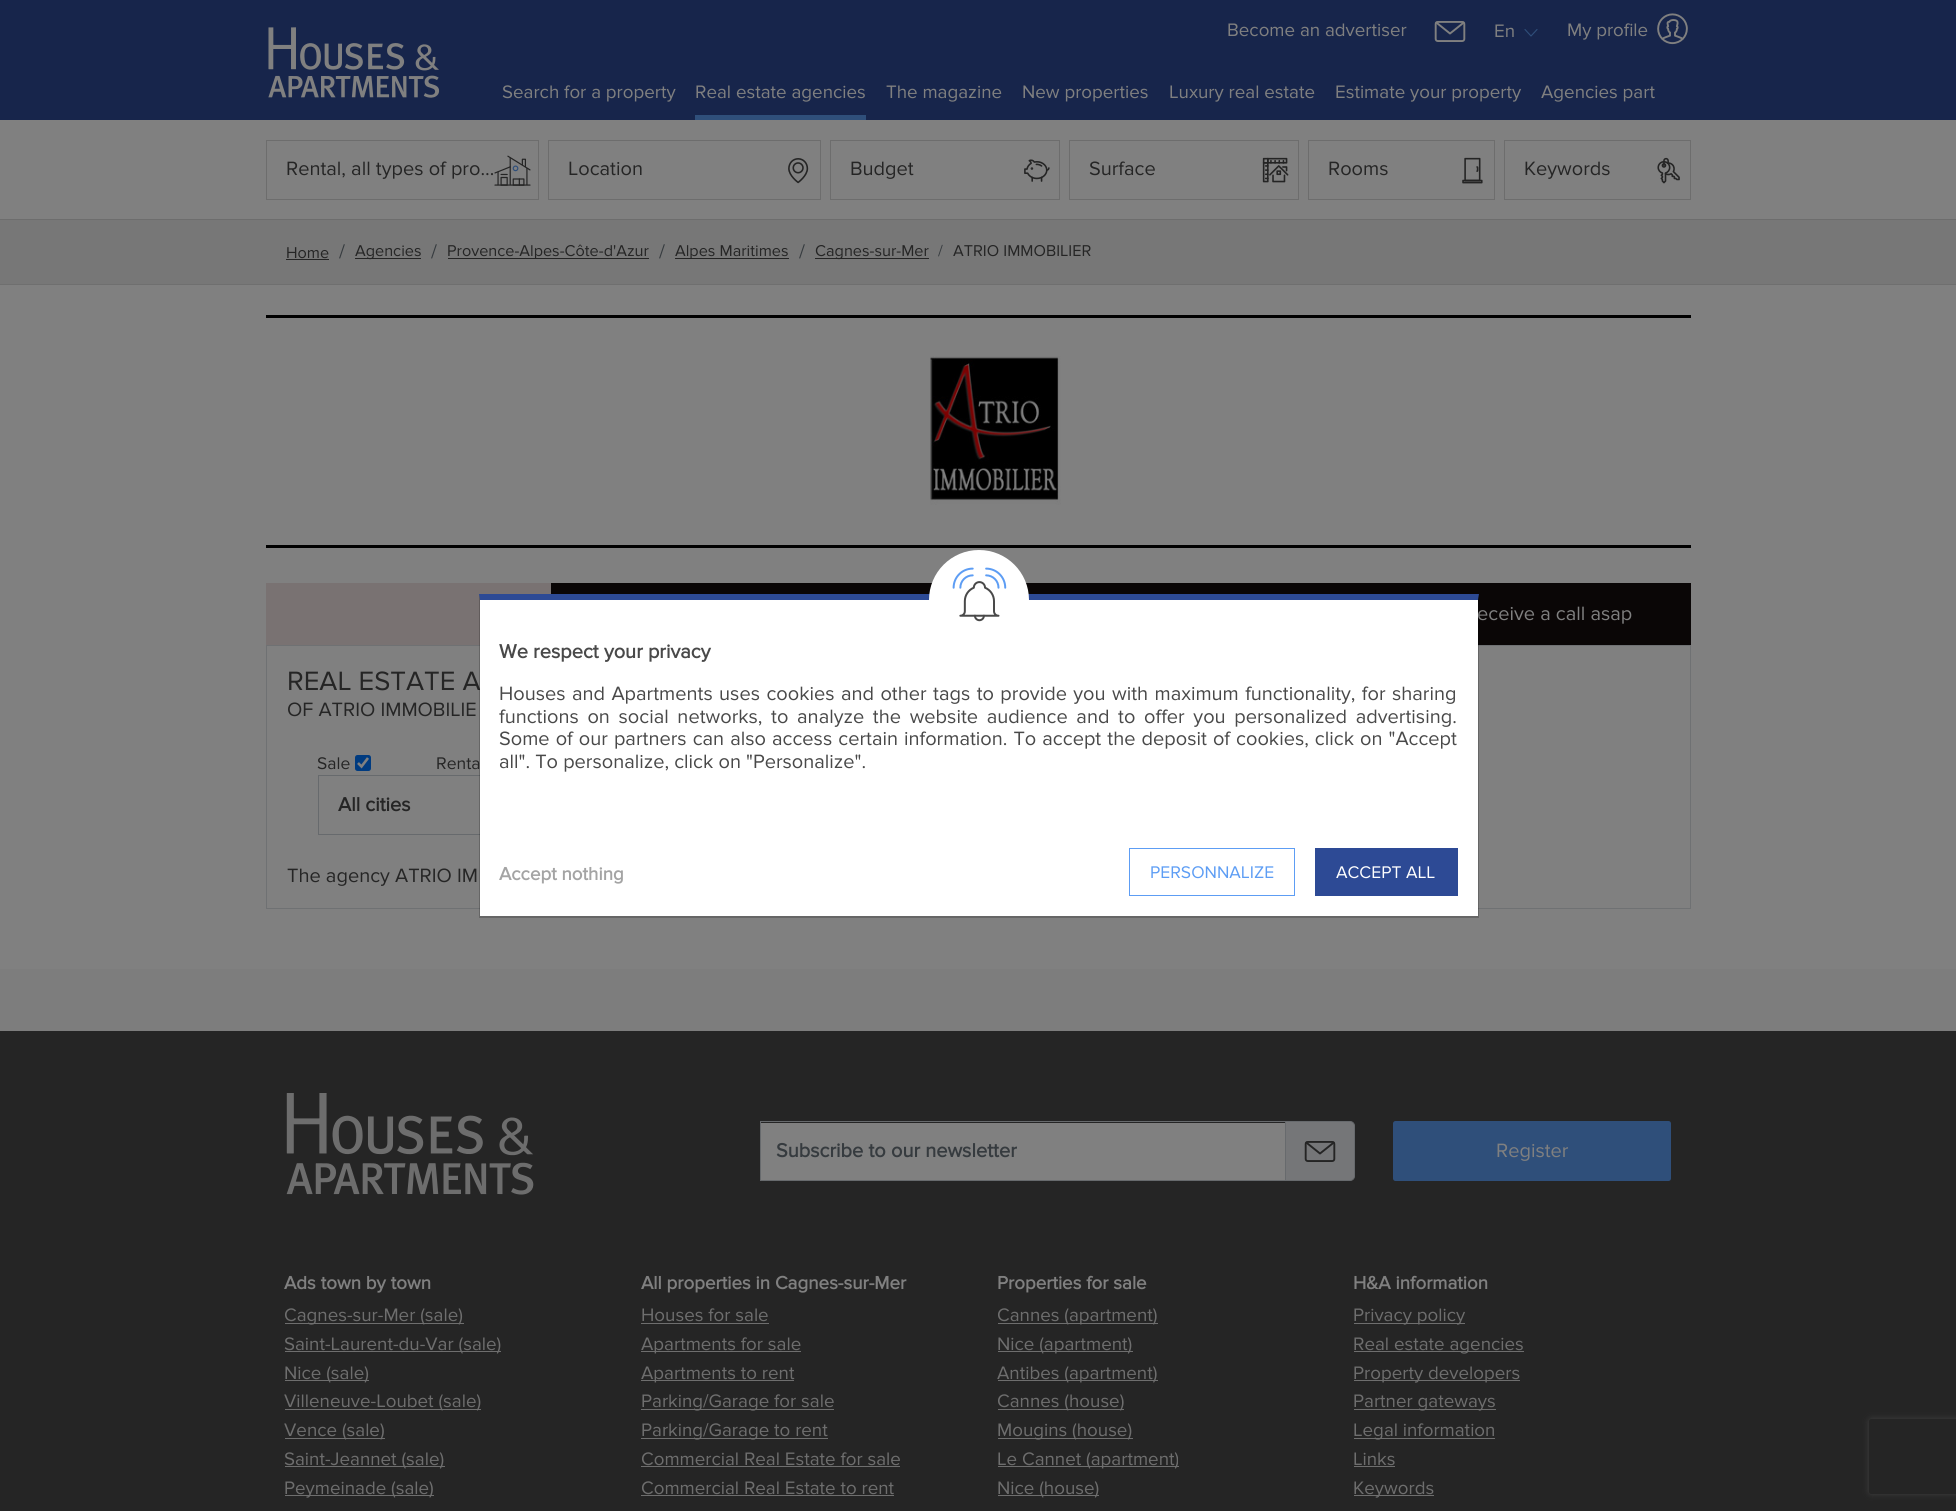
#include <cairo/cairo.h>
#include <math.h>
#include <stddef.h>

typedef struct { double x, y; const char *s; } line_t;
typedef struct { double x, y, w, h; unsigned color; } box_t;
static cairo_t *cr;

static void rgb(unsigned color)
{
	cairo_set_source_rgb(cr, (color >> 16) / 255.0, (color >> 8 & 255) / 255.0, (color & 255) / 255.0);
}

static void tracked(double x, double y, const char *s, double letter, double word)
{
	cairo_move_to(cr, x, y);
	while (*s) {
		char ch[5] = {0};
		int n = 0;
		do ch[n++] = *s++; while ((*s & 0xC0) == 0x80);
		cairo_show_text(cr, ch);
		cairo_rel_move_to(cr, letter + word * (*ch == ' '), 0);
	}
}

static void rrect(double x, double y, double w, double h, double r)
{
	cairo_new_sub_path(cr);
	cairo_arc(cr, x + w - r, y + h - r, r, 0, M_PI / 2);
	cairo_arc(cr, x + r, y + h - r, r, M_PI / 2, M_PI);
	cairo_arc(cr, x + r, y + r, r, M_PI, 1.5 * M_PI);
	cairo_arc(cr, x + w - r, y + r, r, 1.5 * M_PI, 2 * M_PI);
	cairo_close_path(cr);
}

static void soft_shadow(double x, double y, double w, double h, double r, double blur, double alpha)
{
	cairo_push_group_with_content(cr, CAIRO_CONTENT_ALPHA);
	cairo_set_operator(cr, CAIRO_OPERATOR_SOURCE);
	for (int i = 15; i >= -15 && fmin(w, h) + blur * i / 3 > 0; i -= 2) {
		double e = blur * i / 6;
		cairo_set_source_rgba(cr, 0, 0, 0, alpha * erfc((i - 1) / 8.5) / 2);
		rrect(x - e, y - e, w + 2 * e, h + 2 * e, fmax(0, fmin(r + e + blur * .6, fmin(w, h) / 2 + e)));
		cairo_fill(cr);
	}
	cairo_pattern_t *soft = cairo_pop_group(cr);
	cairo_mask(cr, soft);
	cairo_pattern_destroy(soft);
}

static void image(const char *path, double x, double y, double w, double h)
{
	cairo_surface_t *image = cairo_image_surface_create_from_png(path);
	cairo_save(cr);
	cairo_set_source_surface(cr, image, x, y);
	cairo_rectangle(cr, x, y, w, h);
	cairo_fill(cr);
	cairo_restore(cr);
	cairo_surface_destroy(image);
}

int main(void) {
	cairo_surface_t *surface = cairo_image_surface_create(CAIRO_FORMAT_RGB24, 1956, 1511);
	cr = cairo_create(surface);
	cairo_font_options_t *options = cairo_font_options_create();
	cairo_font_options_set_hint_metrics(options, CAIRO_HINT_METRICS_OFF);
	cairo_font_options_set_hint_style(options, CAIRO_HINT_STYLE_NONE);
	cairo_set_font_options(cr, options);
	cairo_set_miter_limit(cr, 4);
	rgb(0x808080);
	cairo_paint(cr);
	rgb(0x17254b);
	cairo_rectangle(cr, 0, 0, 1956, 120);
	cairo_fill(cr);
	image("img/1.png", 268, 27, 172, 71);
	image("img/2.png", 1434, 21, 32, 21);
	cairo_new_path(cr);
	cairo_move_to(cr, 1525, 29.5);
	cairo_line_to(cr, 1531, 36);
	cairo_line_to(cr, 1537, 29.5);
	rgb(0x2f4f7a);
	cairo_set_line_width(cr, 1.1);
	cairo_set_line_cap(cr, CAIRO_LINE_CAP_ROUND);
	cairo_set_line_join(cr, CAIRO_LINE_JOIN_ROUND);
	cairo_stroke(cr);
	image("img/3.png", 1657, 13, 31, 32);
	cairo_rectangle(cr, 695, 115, 171, 5);
	cairo_fill(cr);
	rgb(0x6d6d6d);
	cairo_rectangle(cr, 0, 219, 1956, 1);
	cairo_fill(cr);
	cairo_rectangle(cr, 266.5, 140.5, 272, 59);
	cairo_set_line_width(cr, 1);
	cairo_set_line_cap(cr, CAIRO_LINE_CAP_BUTT);
	cairo_set_line_join(cr, CAIRO_LINE_JOIN_MITER);
	cairo_stroke(cr);
	image("img/4.png", 494, 155, 37, 31);
	cairo_rectangle(cr, 548.5, 140.5, 272, 59);
	cairo_stroke(cr);
	image("img/5.png", 788, 158, 21, 26);
	cairo_rectangle(cr, 830.5, 140.5, 229, 59);
	cairo_stroke(cr);
	image("img/6.png", 1024, 159, 26, 23);
	cairo_rectangle(cr, 1069.5, 140.5, 229, 59);
	cairo_stroke(cr);
	image("img/7.png", 1262, 157, 27, 26);
	cairo_rectangle(cr, 1308.5, 140.5, 186, 59);
	cairo_stroke(cr);
	image("img/8.png", 1462, 157, 21, 27);
	cairo_rectangle(cr, 1504.5, 140.5, 186, 59);
	cairo_stroke(cr);
	image("img/9.png", 1657, 157, 23, 27);
	{
		static const box_t items[] = {
			{0, 220, 1956, 64, 0x777777},
			{0, 284, 1956, 1, 0x6f6f6f},
			{286, 259, 43, 1, 0x252525},
			{355, 258, 66, 1, 0x252525},
			{448, 258, 201, 1, 0x252525},
			{675, 258, 114, 1, 0x252525},
			{815, 258, 114, 1, 0x252525},
			{266, 315, 1425, 3, 0x000000},
			{266, 545, 1425, 3, 0x000000},
		};
		for (size_t i = 0; i < sizeof items / sizeof *items; i++) {
			rgb(items[i].color);
			cairo_rectangle(cr, items[i].x, items[i].y, items[i].w, items[i].h);
			cairo_fill(cr);
		}
	}
	image("img/10.png", 930, 356, 131, 149);
	{
		static const box_t items[] = {
			{266, 583, 285, 62, 0x797272},
			{551, 583, 855, 11, 0x0a0606},
			{1406, 583, 285, 62, 0x0a0606},
		};
		for (size_t i = 0; i < sizeof items / sizeof *items; i++) {
			rgb(items[i].color);
			cairo_rectangle(cr, items[i].x, items[i].y, items[i].w, items[i].h);
			cairo_fill(cr);
		}
	}
	cairo_rectangle(cr, 266.5, 645.5, 1424, 263);
	rgb(0x6f7173);
	cairo_stroke(cr);
	rgb(0x003b80);
	rrect(355, 755, 16, 16, 2.5);
	cairo_fill(cr);
	cairo_new_path(cr);
	cairo_move_to(cr, 358, 763);
	cairo_line_to(cr, 361.5, 766.5);
	cairo_line_to(cr, 368, 758);
	rgb(0x808080);
	cairo_set_line_width(cr, 2.6);
	cairo_stroke(cr);
	cairo_rectangle(cr, 318.5, 775.5, 499, 59);
	rgb(0x676a6d);
	cairo_set_line_width(cr, 1);
	cairo_stroke(cr);
	rgb(0x7d7d7d);
	cairo_rectangle(cr, 0, 969, 1956, 62);
	cairo_fill(cr);
	rgb(0x2d4a95);
	cairo_new_path(cr);
	cairo_move_to(cr, 479, 594);
	cairo_line_to(cr, 1479, 594);
	cairo_line_to(cr, 1478, 600);
	cairo_line_to(cr, 480, 600);
	cairo_close_path(cr);
	cairo_fill(cr);
	rgb(0x252525);
	cairo_rectangle(cr, 0, 1031, 1956, 480);
	cairo_fill(cr);
	image("img/12.png", 286, 1093, 248, 102);
	rgb(0x808080);
	cairo_rectangle(cr, 761, 1123, 524, 57);
	cairo_fill(cr);
	rgb(0x757678);
	cairo_new_path(cr);
	cairo_move_to(cr, 1285.5, 1121.5);
	cairo_line_to(cr, 1350, 1121.5);
	cairo_curve_to(cr, 1352.5, 1121.5, 1354.5, 1123.5, 1354.5, 1126);
	cairo_line_to(cr, 1354.5, 1176);
	cairo_curve_to(cr, 1354.5, 1178.5, 1352.5, 1180.5, 1350, 1180.5);
	cairo_line_to(cr, 1285.5, 1180.5);
	cairo_close_path(cr);
	cairo_fill_preserve(cr);
	rgb(0x676a6d);
	cairo_stroke(cr);
	cairo_rectangle(cr, 760.5, 1121.5, 525, 59);
	cairo_stroke(cr);
	image("img/13.png", 1304, 1141, 32, 21);
	rgb(0x2f4f7a);
	rrect(1393, 1121, 278, 60, 2.5);
	cairo_fill(cr);
	{
		static const box_t items[] = {
			{285, 1323, 179, 1, 0x6e6e6e},
			{285, 1351, 216, 1, 0x6e6e6e},
			{285, 1380, 84, 1, 0x6e6e6e},
			{285, 1409, 196, 1, 0x6e6e6e},
			{285, 1438, 100, 1, 0x6e6e6e},
			{285, 1466, 160, 1, 0x6e6e6e},
			{285, 1495, 149, 1, 0x6e6e6e},
			{641, 1323, 128, 1, 0x6e6e6e},
			{641, 1351, 160, 1, 0x6e6e6e},
			{641, 1380, 153, 1, 0x6e6e6e},
			{641, 1409, 193, 1, 0x6e6e6e},
			{641, 1438, 187, 1, 0x6e6e6e},
			{641, 1466, 259, 1, 0x6e6e6e},
			{641, 1495, 253, 1, 0x6e6e6e},
			{998, 1323, 160, 1, 0x6e6e6e},
			{998, 1351, 135, 1, 0x6e6e6e},
			{998, 1380, 160, 1, 0x6e6e6e},
			{998, 1409, 126, 1, 0x6e6e6e},
			{998, 1438, 135, 1, 0x6e6e6e},
			{998, 1466, 181, 1, 0x6e6e6e},
			{998, 1495, 101, 1, 0x6e6e6e},
			{1354, 1323, 111, 1, 0x6e6e6e},
			{1354, 1351, 170, 1, 0x6e6e6e},
			{1354, 1380, 166, 1, 0x6e6e6e},
			{1354, 1409, 142, 1, 0x6e6e6e},
			{1354, 1438, 141, 1, 0x6e6e6e},
			{1354, 1466, 41, 1, 0x6e6e6e},
			{1354, 1495, 80, 1, 0x6e6e6e},
		};
		for (size_t i = 0; i < sizeof items / sizeof *items; i++) {
			rgb(items[i].color);
			cairo_rectangle(cr, items[i].x, items[i].y, items[i].w, items[i].h);
			cairo_fill(cr);
		}
	}
	cairo_save(cr);
	cairo_set_fill_rule(cr, CAIRO_FILL_RULE_EVEN_ODD);
	cairo_new_path(cr);
	cairo_move_to(cr, 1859, 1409);
	cairo_line_to(cr, 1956, 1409);
	cairo_line_to(cr, 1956, 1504);
	cairo_line_to(cr, 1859, 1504);
	cairo_close_path(cr);
	cairo_move_to(cr, 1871.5, 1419);
	cairo_line_to(cr, 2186.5, 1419);
	cairo_curve_to(cr, 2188, 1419, 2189, 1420, 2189, 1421.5);
	cairo_line_to(cr, 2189, 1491.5);
	cairo_curve_to(cr, 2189, 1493, 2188, 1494, 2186.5, 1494);
	cairo_line_to(cr, 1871.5, 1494);
	cairo_curve_to(cr, 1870, 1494, 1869, 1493, 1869, 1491.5);
	cairo_line_to(cr, 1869, 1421.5);
	cairo_curve_to(cr, 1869, 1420, 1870, 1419, 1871.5, 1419);
	cairo_close_path(cr);
	cairo_clip(cr);
	rgb(0x404040);
	soft_shadow(1869, 1419, 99, 75, 2.5, 3, 1);
	cairo_restore(cr);
	cairo_select_font_face(cr, "Proxima Nova", CAIRO_FONT_SLANT_NORMAL, CAIRO_FONT_WEIGHT_NORMAL);
	cairo_set_font_size(cr, 18.75);
	rgb(0x808080);
	{
		static const line_t items[] = {
			{1227, 36, "Become an advertiser"},
			{1494, 37, "En"},
			{1567, 36, "My profile"},
			{502, 98, "Search for a property"},
			{695, 98, "Real estate agencies"},
			{886, 98, "The magazine"},
			{1022, 98, "New properties"},
			{1169, 98, "Luxury real estate"},
			{1335, 98, "Estimate your property"},
			{1541, 98, "Agencies part"},
		};
		for (size_t i = 0; i < sizeof items / sizeof *items; i++) {
			cairo_move_to(cr, items[i].x, items[i].y);
			cairo_show_text(cr, items[i].s);
		}
	}
	cairo_set_font_size(cr, 20);
	rgb(0x252525);
	{
		static const line_t items[] = {
			{286, 175, "Rental, all types of pro…"},
			{568, 175, "Location"},
			{850, 175, "Budget"},
			{1089, 175, "Surface"},
			{1328, 175, "Rooms"},
			{1524, 175, "Keywords"},
		};
		for (size_t i = 0; i < sizeof items / sizeof *items; i++) {
			cairo_move_to(cr, items[i].x, items[i].y);
			cairo_show_text(cr, items[i].s);
		}
	}
	cairo_set_font_size(cr, 16.25);
	cairo_move_to(cr, 286, 258);
	cairo_show_text(cr, "Home");
	cairo_set_font_size(cr, 20);
	rgb(0x363b3f);
	cairo_move_to(cr, 339, 258);
	cairo_show_text(cr, "/");
	cairo_set_font_size(cr, 16.25);
	rgb(0x252525);
	cairo_move_to(cr, 355, 256);
	cairo_show_text(cr, "Agencies");
	cairo_set_font_size(cr, 20);
	rgb(0x363b3f);
	cairo_move_to(cr, 431, 258);
	cairo_show_text(cr, "/");
	cairo_set_font_size(cr, 16.25);
	rgb(0x252525);
	cairo_move_to(cr, 447, 256);
	cairo_show_text(cr, "Provence-Alpes-Côte-d'Azur");
	cairo_set_font_size(cr, 20);
	rgb(0x363b3f);
	cairo_move_to(cr, 659, 258);
	cairo_show_text(cr, "/");
	cairo_set_font_size(cr, 16.25);
	rgb(0x252525);
	cairo_move_to(cr, 675, 256);
	cairo_show_text(cr, "Alpes Maritimes");
	cairo_set_font_size(cr, 20);
	rgb(0x363b3f);
	cairo_move_to(cr, 799, 258);
	cairo_show_text(cr, "/");
	cairo_set_font_size(cr, 16.25);
	rgb(0x252525);
	cairo_move_to(cr, 815, 256);
	cairo_show_text(cr, "Cagnes-sur-Mer");
	rgb(0x363b3f);
	cairo_move_to(cr, 938, 256);
	cairo_show_text(cr, "/");
	rgb(0x252525);
	cairo_move_to(cr, 953, 256);
	cairo_show_text(cr, "ATRIO IMMOBILIER");
	cairo_set_font_size(cr, 20);
	rgb(0x808080);
	cairo_move_to(cr, 1477, 620);
	cairo_show_text(cr, "eceive a call asap");
	cairo_set_font_size(cr, 27.5);
	rgb(0x252525);
	cairo_move_to(cr, 287, 690);
	cairo_show_text(cr, "REAL ESTATE A");
	cairo_set_font_size(cr, 20);
	cairo_move_to(cr, 287, 716);
	cairo_show_text(cr, "OF ATRIO IMMOBILIE");
	cairo_set_font_size(cr, 17.5);
	cairo_move_to(cr, 317, 769);
	cairo_show_text(cr, "Sale");
	cairo_move_to(cr, 436, 769);
	cairo_show_text(cr, "Renta");
	cairo_select_font_face(cr, "Proxima Nova", CAIRO_FONT_SLANT_NORMAL, CAIRO_FONT_WEIGHT_BOLD);
	cairo_set_font_size(cr, 20);
	cairo_move_to(cr, 338, 811);
	cairo_show_text(cr, "All cities");
	cairo_select_font_face(cr, "Proxima Nova", CAIRO_FONT_SLANT_NORMAL, CAIRO_FONT_WEIGHT_NORMAL);
	cairo_move_to(cr, 287, 882);
	cairo_show_text(cr, "The agency ATRIO IM");
	rgb(0xffffff);
	cairo_rectangle(cr, 480, 600, 998, 316);
	cairo_fill(cr);
	cairo_set_source_rgba(cr, 0, 0, 0, 0.2);
	cairo_new_path(cr);
	cairo_move_to(cr, 1479, 594);
	cairo_line_to(cr, 1479, 918);
	cairo_line_to(cr, 1478, 916);
	cairo_line_to(cr, 1478, 600);
	cairo_close_path(cr);
	cairo_fill(cr);
	cairo_new_path(cr);
	cairo_move_to(cr, 1479, 918);
	cairo_line_to(cr, 479, 918);
	cairo_line_to(cr, 480, 916);
	cairo_line_to(cr, 1478, 916);
	cairo_close_path(cr);
	cairo_fill(cr);
	cairo_new_path(cr);
	cairo_move_to(cr, 479, 918);
	cairo_line_to(cr, 479, 594);
	cairo_line_to(cr, 480, 600);
	cairo_line_to(cr, 480, 916);
	cairo_close_path(cr);
	cairo_fill(cr);
	rgb(0xffffff);
	cairo_arc(cr, 979, 600, 50, 0, 2 * M_PI);
	cairo_fill(cr);
	image("img/11.png", 952, 567, 55, 55);
	cairo_select_font_face(cr, "Proxima Nova", CAIRO_FONT_SLANT_NORMAL, CAIRO_FONT_WEIGHT_BOLD);
	rgb(0x494949);
	cairo_move_to(cr, 499, 658);
	cairo_show_text(cr, "We respect your privacy");
	cairo_select_font_face(cr, "Proxima Nova", CAIRO_FONT_SLANT_NORMAL, CAIRO_FONT_WEIGHT_NORMAL);
	tracked(499, 700, "Houses and Apartments uses cookies and other tags to provide you with maximum functionality, for sharing", 0, 1.25);
	tracked(499, 723, "functions on social networks, to analyze the website audience and to offer you personalized advertising.", 0, 3.5);
	tracked(499, 745, "Some of our partners can also access certain information. To accept the deposit of cookies, click on \"Accept", 0, 0.9);
	cairo_move_to(cr, 499, 768);
	cairo_show_text(cr, "all\". To personalize, click on \"Personalize\".");
	cairo_select_font_face(cr, "Proxima Nova", CAIRO_FONT_SLANT_NORMAL, CAIRO_FONT_WEIGHT_BOLD);
	cairo_set_font_size(cr, 18.75);
	rgb(0xa4a4a4);
	cairo_move_to(cr, 499, 880);
	cairo_show_text(cr, "Accept nothing");
	cairo_rectangle(cr, 1129.5, 848.5, 165, 47);
	rgb(0x5d9df4);
	cairo_stroke(cr);
	cairo_select_font_face(cr, "Proxima Nova", CAIRO_FONT_SLANT_NORMAL, CAIRO_FONT_WEIGHT_NORMAL);
	cairo_set_font_size(cr, 17.5);
	cairo_move_to(cr, 1150, 878);
	cairo_show_text(cr, "PERSONNALIZE");
	rgb(0x2d4a95);
	cairo_rectangle(cr, 1315, 848, 143, 48);
	cairo_fill(cr);
	rgb(0xffffff);
	cairo_move_to(cr, 1336, 878);
	cairo_show_text(cr, "ACCEPT ALL");
	cairo_select_font_face(cr, "Proxima Nova", CAIRO_FONT_SLANT_NORMAL, CAIRO_FONT_WEIGHT_BOLD);
	cairo_set_font_size(cr, 20);
	rgb(0x363b3f);
	cairo_move_to(cr, 776, 1157);
	cairo_show_text(cr, "Subscribe to our newsletter");
	cairo_select_font_face(cr, "Proxima Nova", CAIRO_FONT_SLANT_NORMAL, CAIRO_FONT_WEIGHT_NORMAL);
	rgb(0x808080);
	cairo_move_to(cr, 1496, 1157);
	cairo_show_text(cr, "Register");
	cairo_select_font_face(cr, "Proxima Nova", CAIRO_FONT_SLANT_NORMAL, CAIRO_FONT_WEIGHT_BOLD);
	cairo_set_font_size(cr, 18.75);
	cairo_move_to(cr, 284, 1289);
	cairo_show_text(cr, "Ads town by town");
	cairo_select_font_face(cr, "Proxima Nova", CAIRO_FONT_SLANT_NORMAL, CAIRO_FONT_WEIGHT_NORMAL);
	rgb(0x6e6e6e);
	{
		static const line_t items[] = {
			{284, 1321, "Cagnes-sur-Mer (sale)"},
			{284, 1350, "Saint-Laurent-du-Var (sale)"},
			{284, 1379, "Nice (sale)"},
			{284, 1407, "Villeneuve-Loubet (sale)"},
			{284, 1436, "Vence (sale)"},
			{284, 1465, "Saint-Jeannet (sale)"},
			{284, 1494, "Peymeinade (sale)"},
		};
		for (size_t i = 0; i < sizeof items / sizeof *items; i++) {
			cairo_move_to(cr, items[i].x, items[i].y);
			cairo_show_text(cr, items[i].s);
		}
	}
	cairo_select_font_face(cr, "Proxima Nova", CAIRO_FONT_SLANT_NORMAL, CAIRO_FONT_WEIGHT_BOLD);
	rgb(0x808080);
	cairo_move_to(cr, 641, 1289);
	cairo_show_text(cr, "All properties in Cagnes-sur-Mer");
	cairo_select_font_face(cr, "Proxima Nova", CAIRO_FONT_SLANT_NORMAL, CAIRO_FONT_WEIGHT_NORMAL);
	rgb(0x6e6e6e);
	{
		static const line_t items[] = {
			{641, 1321, "Houses for sale"},
			{641, 1350, "Apartments for sale"},
			{641, 1379, "Apartments to rent"},
			{641, 1407, "Parking/Garage for sale"},
			{641, 1436, "Parking/Garage to rent"},
			{641, 1465, "Commercial Real Estate for sale"},
			{641, 1494, "Commercial Real Estate to rent"},
		};
		for (size_t i = 0; i < sizeof items / sizeof *items; i++) {
			cairo_move_to(cr, items[i].x, items[i].y);
			cairo_show_text(cr, items[i].s);
		}
	}
	cairo_select_font_face(cr, "Proxima Nova", CAIRO_FONT_SLANT_NORMAL, CAIRO_FONT_WEIGHT_BOLD);
	rgb(0x808080);
	cairo_move_to(cr, 997, 1289);
	cairo_show_text(cr, "Properties for sale");
	cairo_select_font_face(cr, "Proxima Nova", CAIRO_FONT_SLANT_NORMAL, CAIRO_FONT_WEIGHT_NORMAL);
	rgb(0x6e6e6e);
	{
		static const line_t items[] = {
			{997, 1321, "Cannes (apartment)"},
			{997, 1350, "Nice (apartment)"},
			{997, 1379, "Antibes (apartment)"},
			{997, 1407, "Cannes (house)"},
			{997, 1436, "Mougins (house)"},
			{997, 1465, "Le Cannet (apartment)"},
			{997, 1494, "Nice (house)"},
		};
		for (size_t i = 0; i < sizeof items / sizeof *items; i++) {
			cairo_move_to(cr, items[i].x, items[i].y);
			cairo_show_text(cr, items[i].s);
		}
	}
	cairo_select_font_face(cr, "Proxima Nova", CAIRO_FONT_SLANT_NORMAL, CAIRO_FONT_WEIGHT_BOLD);
	rgb(0x808080);
	cairo_move_to(cr, 1353, 1289);
	cairo_show_text(cr, "H&A information");
	cairo_select_font_face(cr, "Proxima Nova", CAIRO_FONT_SLANT_NORMAL, CAIRO_FONT_WEIGHT_NORMAL);
	rgb(0x6e6e6e);
	{
		static const line_t items[] = {
			{1353, 1321, "Privacy policy"},
			{1353, 1350, "Real estate agencies"},
			{1353, 1379, "Property developers"},
			{1353, 1407, "Partner gateways"},
			{1353, 1436, "Legal information"},
			{1353, 1465, "Links"},
			{1353, 1494, "Keywords"},
		};
		for (size_t i = 0; i < sizeof items / sizeof *items; i++) {
			cairo_move_to(cr, items[i].x, items[i].y);
			cairo_show_text(cr, items[i].s);
		}
	}
	cairo_surface_write_to_png(surface, "page.png");
	cairo_font_options_destroy(options);
	cairo_destroy(cr);
	cairo_surface_destroy(surface);
	return 0;
}
